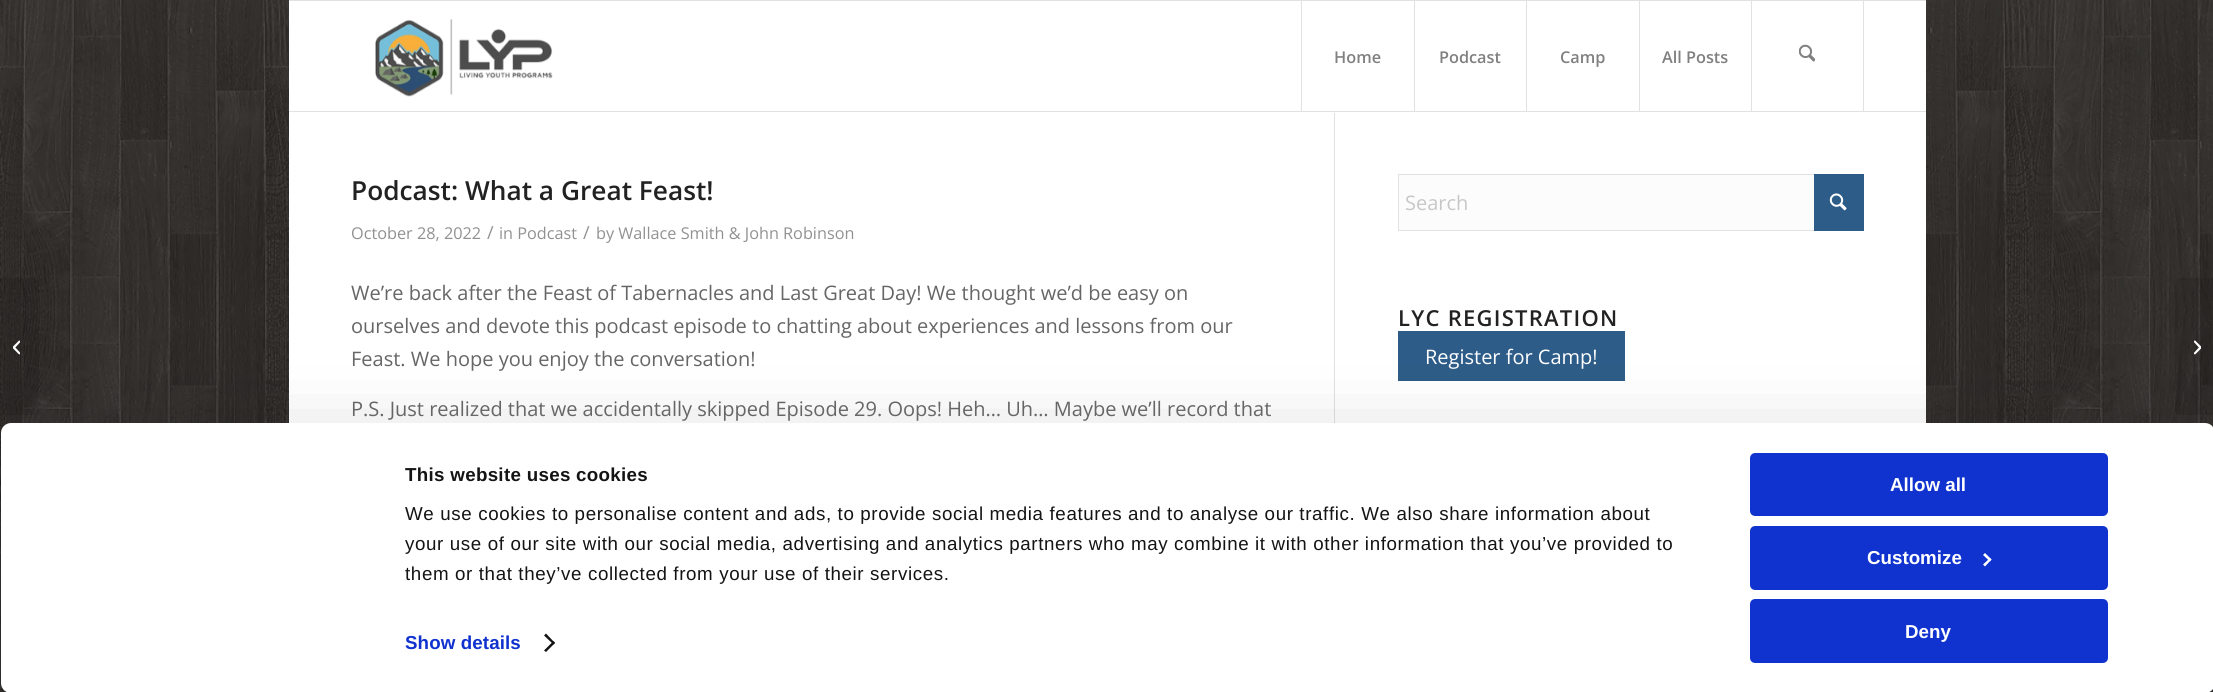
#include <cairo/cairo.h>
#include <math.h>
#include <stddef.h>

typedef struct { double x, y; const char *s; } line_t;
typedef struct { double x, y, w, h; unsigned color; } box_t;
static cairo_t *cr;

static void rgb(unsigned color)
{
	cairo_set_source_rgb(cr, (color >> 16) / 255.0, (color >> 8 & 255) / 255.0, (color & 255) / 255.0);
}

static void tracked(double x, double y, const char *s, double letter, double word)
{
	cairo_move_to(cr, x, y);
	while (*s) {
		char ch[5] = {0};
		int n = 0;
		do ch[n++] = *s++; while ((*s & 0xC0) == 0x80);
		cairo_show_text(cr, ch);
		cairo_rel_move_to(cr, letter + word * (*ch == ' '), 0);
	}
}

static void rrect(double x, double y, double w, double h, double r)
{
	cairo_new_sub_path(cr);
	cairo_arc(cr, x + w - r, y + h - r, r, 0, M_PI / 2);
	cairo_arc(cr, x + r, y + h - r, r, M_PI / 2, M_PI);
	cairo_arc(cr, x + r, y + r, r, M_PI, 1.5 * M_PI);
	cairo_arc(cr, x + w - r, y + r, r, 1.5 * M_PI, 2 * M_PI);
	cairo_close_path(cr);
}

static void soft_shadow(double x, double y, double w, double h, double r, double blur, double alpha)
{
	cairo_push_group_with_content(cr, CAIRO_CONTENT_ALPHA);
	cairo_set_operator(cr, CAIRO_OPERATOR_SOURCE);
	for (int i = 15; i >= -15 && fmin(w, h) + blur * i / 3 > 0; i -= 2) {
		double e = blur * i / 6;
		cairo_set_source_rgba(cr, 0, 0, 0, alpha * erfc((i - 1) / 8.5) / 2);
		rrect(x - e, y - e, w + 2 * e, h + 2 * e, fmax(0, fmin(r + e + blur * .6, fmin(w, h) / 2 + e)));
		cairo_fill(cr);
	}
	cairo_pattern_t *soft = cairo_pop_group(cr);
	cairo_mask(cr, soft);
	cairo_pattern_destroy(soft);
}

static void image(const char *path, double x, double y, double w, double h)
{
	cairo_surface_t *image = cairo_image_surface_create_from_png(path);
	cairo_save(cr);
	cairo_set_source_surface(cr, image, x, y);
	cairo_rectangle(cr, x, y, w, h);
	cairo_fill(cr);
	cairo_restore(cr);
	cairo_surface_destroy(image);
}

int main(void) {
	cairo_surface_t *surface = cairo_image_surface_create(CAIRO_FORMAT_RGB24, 2213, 692);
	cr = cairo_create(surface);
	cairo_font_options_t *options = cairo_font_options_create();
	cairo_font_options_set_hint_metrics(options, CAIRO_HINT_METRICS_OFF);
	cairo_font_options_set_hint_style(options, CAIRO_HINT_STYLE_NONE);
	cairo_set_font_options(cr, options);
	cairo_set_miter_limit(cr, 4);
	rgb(0x24211e);
	cairo_paint(cr);
	image("img/1.png", 0, 0, 2213, 692);
	rgb(0xe1e1e1);
	cairo_rectangle(cr, 289, 0, 1637, 1);
	cairo_fill(cr);
	rgb(0xffffff);
	cairo_rectangle(cr, 289, 1, 1637, 422);
	cairo_fill(cr);
	rgb(0xe1e1e1);
	cairo_rectangle(cr, 289, 110, 1637, 1);
	cairo_fill(cr);
	cairo_rectangle(cr, 1334, 111, 1, 312);
	cairo_fill(cr);
	cairo_set_source_rgba(cr, 1, 1, 1, 0.95);
	cairo_rectangle(cr, 289, 110, 1637, 3);
	cairo_fill(cr);
	rgb(0xe1e1e1);
	cairo_rectangle(cr, 289, 111, 1637, 1);
	cairo_fill(cr);
	image("img/2.png", 375, 19, 178, 78);
	{
		static const box_t items[] = {
			{1301, 1, 1, 110, 0xe1e1e1},
			{1414, 1, 1, 110, 0xe1e1e1},
			{1526, 1, 1, 110, 0xe1e1e1},
			{1639, 1, 1, 110, 0xe1e1e1},
			{1863, 1, 1, 110, 0xe1e1e1},
			{1751, 1, 1, 110, 0xe1e1e1},
		};
		for (size_t i = 0; i < sizeof items / sizeof *items; i++) {
			rgb(items[i].color);
			cairo_rectangle(cr, items[i].x, items[i].y, items[i].w, items[i].h);
			cairo_fill(cr);
		}
	}
	image("img/3.png", 1799, 44, 16, 18);
	cairo_set_source_rgba(cr, 0, 0, 0, 0.1);
	cairo_new_path(cr);
	cairo_move_to(cr, 0, 278);
	cairo_line_to(cr, 34, 278);
	cairo_curve_to(cr, 37, 278, 39, 280, 39, 283);
	cairo_line_to(cr, 39, 410);
	cairo_curve_to(cr, 39, 413, 37, 415, 34, 415);
	cairo_line_to(cr, 0, 415);
	cairo_close_path(cr);
	cairo_fill(cr);
	image("img/4.png", 13, 340, 7, 15);
	rgb(0xfcfcfc);
	cairo_rectangle(cr, 1399, 175, 415, 55);
	cairo_fill(cr);
	cairo_rectangle(cr, 1398.5, 174.5, 465, 56);
	rgb(0xe1e1e1);
	cairo_set_line_width(cr, 1);
	cairo_stroke(cr);
	rgb(0x2d5c88);
	cairo_rectangle(cr, 1814, 174, 50, 57);
	cairo_fill(cr);
	image("img/5.png", 1829, 193, 18, 18);
	cairo_rectangle(cr, 1398, 331, 227, 50);
	cairo_fill(cr);
	cairo_set_source_rgba(cr, 0, 0, 0, 0.1);
	cairo_new_path(cr);
	cairo_move_to(cr, 2180, 278);
	cairo_line_to(cr, 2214, 278);
	cairo_line_to(cr, 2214, 415);
	cairo_line_to(cr, 2180, 415);
	cairo_curve_to(cr, 2177, 415, 2175, 413, 2175, 410);
	cairo_line_to(cr, 2175, 283);
	cairo_curve_to(cr, 2175, 280, 2177, 278, 2180, 278);
	cairo_close_path(cr);
	cairo_fill(cr);
	image("img/6.png", 2194, 340, 7, 15);
	rgb(0x000000);
	soft_shadow(1, 460, 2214, 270, 10, 44, 0.3);
	rgb(0xffffff);
	rrect(1, 423, 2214, 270, 10);
	cairo_fill(cr);
	rgb(0x141414);
	cairo_new_path(cr);
	cairo_move_to(cr, 546, 633.5);
	cairo_line_to(cr, 555, 643);
	cairo_line_to(cr, 553.5, 644.5);
	cairo_line_to(cr, 544, 635.5);
	cairo_close_path(cr);
	cairo_fill(cr);
	cairo_new_path(cr);
	cairo_move_to(cr, 553.5, 641);
	cairo_line_to(cr, 555, 643);
	cairo_line_to(cr, 546, 652);
	cairo_line_to(cr, 544, 650.5);
	cairo_close_path(cr);
	cairo_fill(cr);
	rgb(0x1032cf);
	rrect(1751.5, 454.5, 355, 60, 3.5);
	cairo_fill_preserve(cr);
	cairo_set_line_width(cr, 3);
	cairo_stroke(cr);
	rrect(1751.5, 527.5, 355, 61, 3.5);
	cairo_fill_preserve(cr);
	cairo_stroke(cr);
	rgb(0xffffff);
	cairo_new_path(cr);
	cairo_move_to(cr, 1985, 553);
	cairo_line_to(cr, 1991.5, 559.5);
	cairo_line_to(cr, 1990, 561.5);
	cairo_line_to(cr, 1983, 555);
	cairo_close_path(cr);
	cairo_fill(cr);
	cairo_new_path(cr);
	cairo_move_to(cr, 1990, 558);
	cairo_line_to(cr, 1991.5, 559.5);
	cairo_line_to(cr, 1985, 566.5);
	cairo_line_to(cr, 1983, 564.5);
	cairo_close_path(cr);
	cairo_fill(cr);
	rgb(0x1032cf);
	rrect(1751.5, 600.5, 355, 61, 3.5);
	cairo_fill_preserve(cr);
	cairo_stroke(cr);
	cairo_select_font_face(cr, "Open Sans SemiBold", CAIRO_FONT_SLANT_NORMAL, CAIRO_FONT_WEIGHT_NORMAL);
	cairo_set_font_size(cr, 16.25);
	rgb(0x808080);
	{
		static const line_t items[] = {
			{1334, 63, "Home"},
			{1439, 63, "Podcast"},
			{1560, 63, "Camp"},
			{1662, 63, "All Posts"},
		};
		for (size_t i = 0; i < sizeof items / sizeof *items; i++) {
			cairo_move_to(cr, items[i].x, items[i].y);
			cairo_show_text(cr, items[i].s);
		}
	}
	cairo_set_font_size(cr, 26.25);
	rgb(0x222222);
	cairo_move_to(cr, 351, 200);
	cairo_show_text(cr, "Podcast: What a Great Feast!");
	cairo_select_font_face(cr, "Open Sans", CAIRO_FONT_SLANT_NORMAL, CAIRO_FONT_WEIGHT_NORMAL);
	cairo_set_font_size(cr, 16.25);
	rgb(0x919191);
	cairo_move_to(cr, 351, 239);
	cairo_show_text(cr, "October 28, 2022");
	cairo_set_font_size(cr, 18);
	cairo_move_to(cr, 487, 239);
	cairo_show_text(cr, "/");
	cairo_set_font_size(cr, 16.25);
	cairo_move_to(cr, 499, 239);
	cairo_show_text(cr, "in Podcast");
	cairo_set_font_size(cr, 18);
	cairo_move_to(cr, 583, 239);
	cairo_show_text(cr, "/");
	cairo_set_font_size(cr, 16.25);
	cairo_move_to(cr, 596, 239);
	cairo_show_text(cr, "by Wallace Smith & John Robinson");
	cairo_set_font_size(cr, 20);
	rgb(0x666666);
	{
		static const line_t items[] = {
			{351, 300, "We’re back after the Feast of Tabernacles and Last Great Day! We thought we’d be easy on"},
			{351, 333, "ourselves and devote this podcast episode to chatting about experiences and lessons from our"},
			{351, 366, "Feast. We hope you enjoy the conversation!"},
			{351, 416, "P.S. Just realized that we accidentally skipped Episode 29. Oops! Heh… Uh… Maybe we’ll record that"},
		};
		for (size_t i = 0; i < sizeof items / sizeof *items; i++) {
			cairo_move_to(cr, items[i].x, items[i].y);
			cairo_show_text(cr, items[i].s);
		}
	}
	rgb(0xc7c7c7);
	cairo_move_to(cr, 1405, 210);
	cairo_show_text(cr, "Search");
	cairo_select_font_face(cr, "Open Sans SemiBold", CAIRO_FONT_SLANT_NORMAL, CAIRO_FONT_WEIGHT_NORMAL);
	cairo_set_font_size(cr, 22);
	rgb(0x222222);
	tracked(1398, 326, "LYC REGISTRATION", 1.25, 0);
	cairo_select_font_face(cr, "Open Sans", CAIRO_FONT_SLANT_NORMAL, CAIRO_FONT_WEIGHT_NORMAL);
	cairo_set_font_size(cr, 20);
	rgb(0xffffff);
	cairo_move_to(cr, 1425, 364);
	cairo_show_text(cr, "Register for Camp!");
	cairo_select_font_face(cr, "Liberation Sans", CAIRO_FONT_SLANT_NORMAL, CAIRO_FONT_WEIGHT_BOLD);
	cairo_set_font_size(cr, 18.75);
	rgb(0x141414);
	tracked(405, 481, "This website uses cookies", 0.3, 0);
	cairo_select_font_face(cr, "Liberation Sans", CAIRO_FONT_SLANT_NORMAL, CAIRO_FONT_WEIGHT_NORMAL);
	{
		static const line_t items[] = {
			{405, 520, "We use cookies to personalise content and ads, to provide social media features and to analyse our traffic. We also share information about"},
			{405, 550, "your use of our site with our social media, advertising and analytics partners who may combine it with other information that you’ve provided to"},
			{405, 580, "them or that they’ve collected from your use of their services."},
		};
		for (size_t i = 0; i < sizeof items / sizeof *items; i++) {
			tracked(items[i].x, items[i].y, items[i].s, 0.62, 0);
		}
	}
	cairo_select_font_face(cr, "Liberation Sans", CAIRO_FONT_SLANT_NORMAL, CAIRO_FONT_WEIGHT_BOLD);
	rgb(0x1032cf);
	tracked(405, 649, "Show details", 0.1, 0);
	rgb(0xffffff);
	{
		static const line_t items[] = {
			{1890, 491, "Allow all"},
			{1867, 564, "Customize"},
			{1905, 638, "Deny"},
		};
		for (size_t i = 0; i < sizeof items / sizeof *items; i++) {
			cairo_move_to(cr, items[i].x, items[i].y);
			cairo_show_text(cr, items[i].s);
		}
	}
	cairo_surface_write_to_png(surface, "page.png");
	cairo_font_options_destroy(options);
	cairo_destroy(cr);
	cairo_surface_destroy(surface);
	return 0;
}
